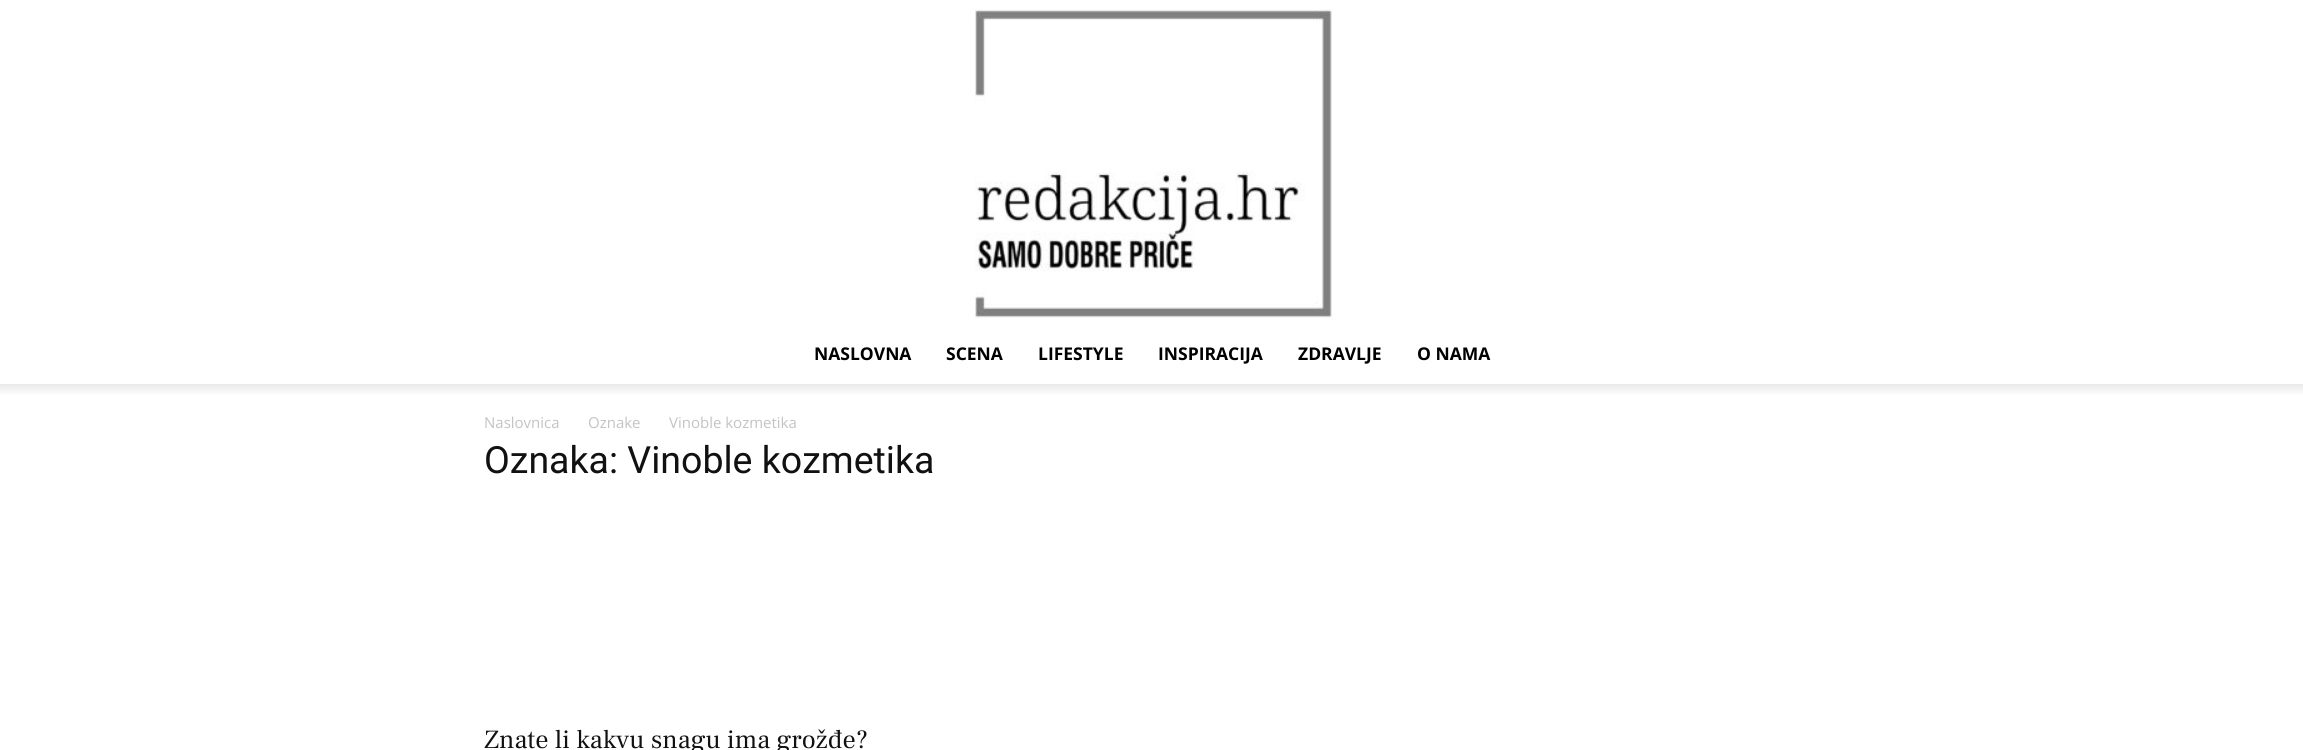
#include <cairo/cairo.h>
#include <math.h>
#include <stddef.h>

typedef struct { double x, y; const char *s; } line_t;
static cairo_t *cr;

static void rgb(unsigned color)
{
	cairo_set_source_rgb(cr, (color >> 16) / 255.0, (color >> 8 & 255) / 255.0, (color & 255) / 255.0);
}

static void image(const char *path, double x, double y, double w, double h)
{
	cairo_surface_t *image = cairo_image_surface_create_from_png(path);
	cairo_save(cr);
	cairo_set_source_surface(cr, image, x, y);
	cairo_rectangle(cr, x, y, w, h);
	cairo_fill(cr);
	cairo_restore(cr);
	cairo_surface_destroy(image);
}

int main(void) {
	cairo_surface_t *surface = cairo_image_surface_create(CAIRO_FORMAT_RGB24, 2303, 750);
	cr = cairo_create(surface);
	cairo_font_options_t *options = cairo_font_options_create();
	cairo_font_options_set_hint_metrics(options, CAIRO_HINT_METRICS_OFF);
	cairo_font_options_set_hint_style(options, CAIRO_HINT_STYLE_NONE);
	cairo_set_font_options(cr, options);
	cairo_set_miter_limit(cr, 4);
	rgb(0xffffff);
	cairo_paint(cr);
	image("img/1.png", 975, 9, 360, 311);
	image("img/2.png", 0, 384, 2303, 10);
	cairo_select_font_face(cr, "Open Sans", CAIRO_FONT_SLANT_NORMAL, CAIRO_FONT_WEIGHT_BOLD);
	cairo_set_font_size(cr, 17.5);
	rgb(0x000000);
	{
		static const line_t items[] = {
			{814, 360, "NASLOVNA"},
			{946, 360, "SCENA"},
			{1038, 360, "LIFESTYLE"},
			{1158, 360, "INSPIRACIJA"},
			{1298, 360, "ZDRAVLJE"},
			{1417, 360, "O NAMA"},
		};
		for (size_t i = 0; i < sizeof items / sizeof *items; i++) {
			cairo_move_to(cr, items[i].x, items[i].y);
			cairo_show_text(cr, items[i].s);
		}
	}
	cairo_select_font_face(cr, "Open Sans", CAIRO_FONT_SLANT_NORMAL, CAIRO_FONT_WEIGHT_NORMAL);
	cairo_set_font_size(cr, 15);
	rgb(0xc3c3c3);
	{
		static const line_t items[] = {
			{484, 428, "Naslovnica"},
			{588, 428, "Oznake"},
			{669, 428, "Vinoble kozmetika"},
		};
		for (size_t i = 0; i < sizeof items / sizeof *items; i++) {
			cairo_move_to(cr, items[i].x, items[i].y);
			cairo_show_text(cr, items[i].s);
		}
	}
	cairo_select_font_face(cr, "Roboto", CAIRO_FONT_SLANT_NORMAL, CAIRO_FONT_WEIGHT_NORMAL);
	cairo_set_font_size(cr, 37.5);
	rgb(0x111111);
	cairo_move_to(cr, 484, 473);
	cairo_show_text(cr, "Oznaka: Vinoble kozmetika");
	cairo_select_font_face(cr, "Frank Ruhl Libre", CAIRO_FONT_SLANT_NORMAL, CAIRO_FONT_WEIGHT_NORMAL);
	cairo_set_font_size(cr, 26.25);
	cairo_move_to(cr, 484, 748);
	cairo_show_text(cr, "Znate li kakvu snagu ima grožđe?");
	cairo_surface_write_to_png(surface, "page.png");
	cairo_font_options_destroy(options);
	cairo_destroy(cr);
	cairo_surface_destroy(surface);
	return 0;
}
